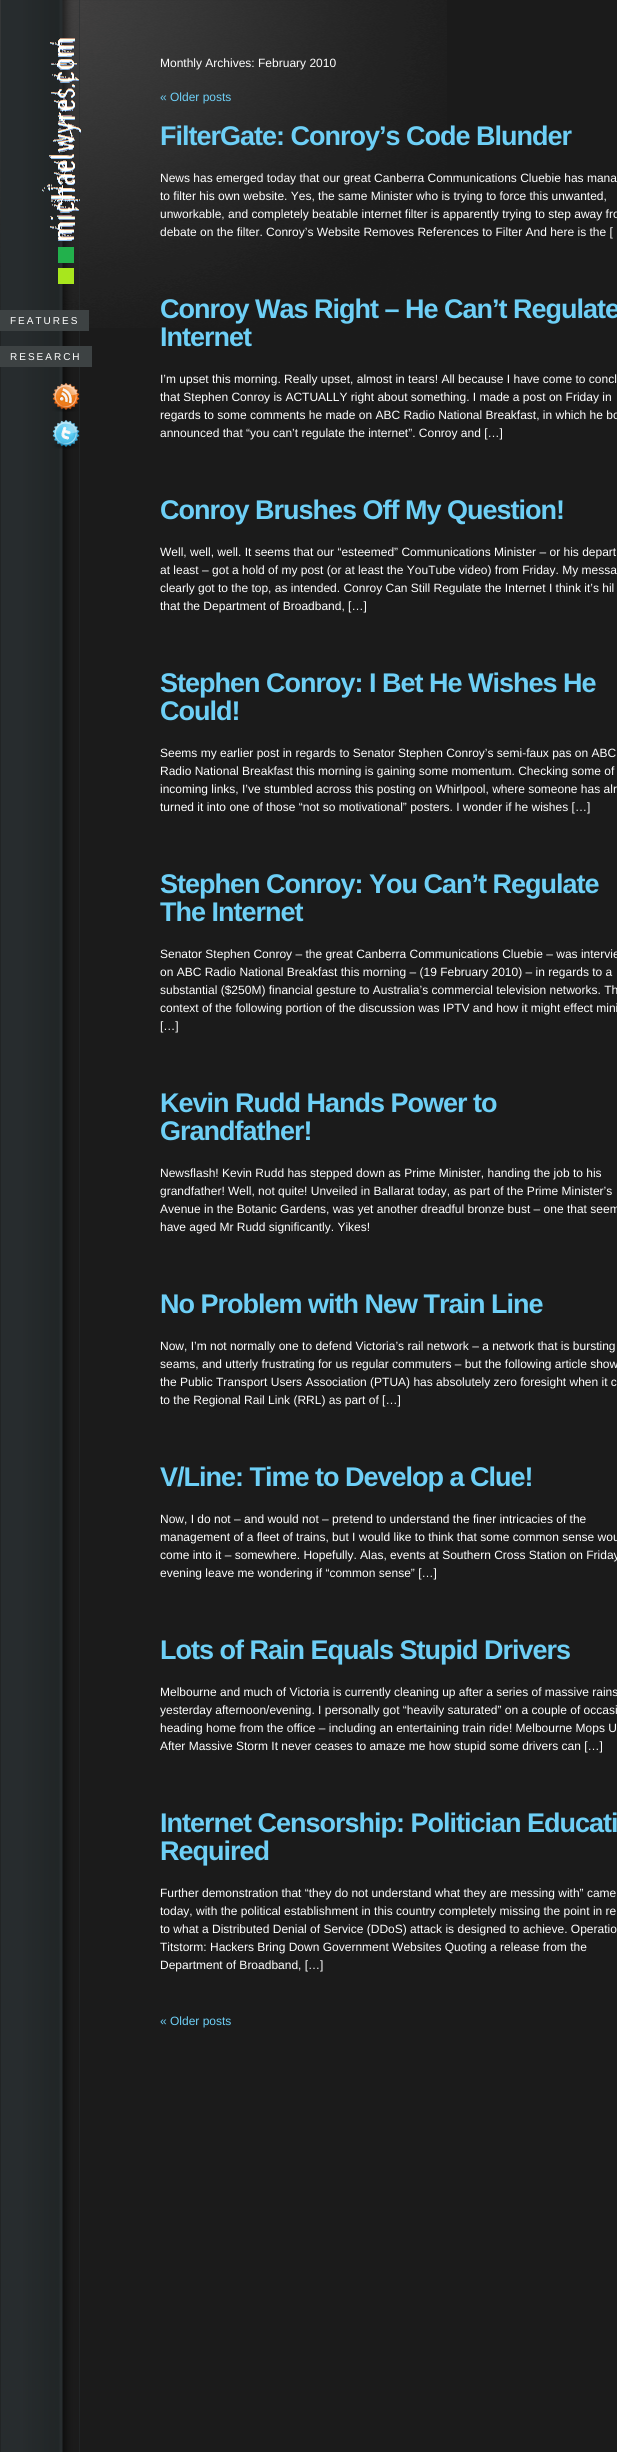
#include <cairo/cairo.h>
#include <math.h>
#include <stddef.h>

typedef struct { double x, y; const char *s; } line_t;
static cairo_t *cr;

static void rgb(unsigned color)
{
	cairo_set_source_rgb(cr, (color >> 16) / 255.0, (color >> 8 & 255) / 255.0, (color & 255) / 255.0);
}

static void tracked(double x, double y, const char *s, double letter, double word)
{
	cairo_move_to(cr, x, y);
	while (*s) {
		char ch[5] = {0};
		int n = 0;
		do ch[n++] = *s++; while ((*s & 0xC0) == 0x80);
		cairo_show_text(cr, ch);
		cairo_rel_move_to(cr, letter + word * (*ch == ' '), 0);
	}
}

static void image(const char *path, double x, double y, double w, double h)
{
	cairo_surface_t *image = cairo_image_surface_create_from_png(path);
	cairo_save(cr);
	cairo_set_source_surface(cr, image, x, y);
	cairo_rectangle(cr, x, y, w, h);
	cairo_fill(cr);
	cairo_restore(cr);
	cairo_surface_destroy(image);
}

int main(void) {
	cairo_surface_t *surface = cairo_image_surface_create(CAIRO_FORMAT_RGB24, 617, 2452);
	cr = cairo_create(surface);
	cairo_font_options_t *options = cairo_font_options_create();
	cairo_font_options_set_hint_metrics(options, CAIRO_HINT_METRICS_OFF);
	cairo_font_options_set_hint_style(options, CAIRO_HINT_STYLE_NONE);
	cairo_set_font_options(cr, options);
	cairo_set_miter_limit(cr, 4);
	rgb(0x1b1b1b);
	cairo_paint(cr);
	image("img/1.png", 0, 0, 447, 328);
	image("img/2.png", 0, 0, 80, 2452);
	image("img/3.png", 42, 38, 39, 246);
	rgb(0x3d4243);
	cairo_rectangle(cr, 0, 310, 89, 21);
	cairo_fill(cr);
	cairo_rectangle(cr, 0, 346, 92, 21);
	cairo_fill(cr);
	image("img/4.png", 52, 383, 28, 29);
	image("img/5.png", 52, 420, 28, 29);
	cairo_select_font_face(cr, "Liberation Sans", CAIRO_FONT_SLANT_NORMAL, CAIRO_FONT_WEIGHT_NORMAL);
	cairo_set_font_size(cr, 10);
	rgb(0xffffff);
	tracked(10, 324, "FEATURES", 2, 0);
	tracked(10, 360, "RESEARCH", 2, 0);
	cairo_set_font_size(cr, 12);
	cairo_move_to(cr, 160, 67);
	cairo_show_text(cr, "Monthly Archives: February 2010");
	rgb(0x6dcff6);
	cairo_move_to(cr, 160, 101);
	cairo_show_text(cr, "« Older posts");
	cairo_select_font_face(cr, "Liberation Sans", CAIRO_FONT_SLANT_NORMAL, CAIRO_FONT_WEIGHT_BOLD);
	cairo_set_font_size(cr, 27);
	tracked(160, 145, "FilterGate: Conroy’s Code Blunder", -1, 0);
	cairo_select_font_face(cr, "Liberation Sans", CAIRO_FONT_SLANT_NORMAL, CAIRO_FONT_WEIGHT_NORMAL);
	cairo_set_font_size(cr, 12);
	rgb(0xffffff);
	{
		static const line_t items[] = {
			{160, 182, "News has emerged today that our great Canberra Communications Cluebie has mana"},
			{160, 200, "to filter his own website. Yes, the same Minister who is trying to force this unwanted,"},
			{160, 218, "unworkable, and completely beatable internet filter is apparently trying to step away fro"},
			{160, 236, "debate on the filter. Conroy’s Website Removes References to Filter And here is the ["},
		};
		for (size_t i = 0; i < sizeof items / sizeof *items; i++) {
			cairo_move_to(cr, items[i].x, items[i].y);
			cairo_show_text(cr, items[i].s);
		}
	}
	cairo_select_font_face(cr, "Liberation Sans", CAIRO_FONT_SLANT_NORMAL, CAIRO_FONT_WEIGHT_BOLD);
	cairo_set_font_size(cr, 27);
	rgb(0x6dcff6);
	tracked(160, 318, "Conroy Was Right – He Can’t Regulate", -1, 0);
	tracked(160, 346, "Internet", -1, 0);
	cairo_select_font_face(cr, "Liberation Sans", CAIRO_FONT_SLANT_NORMAL, CAIRO_FONT_WEIGHT_NORMAL);
	cairo_set_font_size(cr, 12);
	rgb(0xffffff);
	{
		static const line_t items[] = {
			{160, 383, "I’m upset this morning. Really upset, almost in tears! All because I have come to concl"},
			{160, 401, "that Stephen Conroy is ACTUALLY right about something. I made a post on Friday in"},
			{160, 419, "regards to some comments he made on ABC Radio National Breakfast, in which he bo"},
			{160, 437, "announced that “you can’t regulate the internet”. Conroy and […]"},
		};
		for (size_t i = 0; i < sizeof items / sizeof *items; i++) {
			cairo_move_to(cr, items[i].x, items[i].y);
			cairo_show_text(cr, items[i].s);
		}
	}
	cairo_select_font_face(cr, "Liberation Sans", CAIRO_FONT_SLANT_NORMAL, CAIRO_FONT_WEIGHT_BOLD);
	cairo_set_font_size(cr, 27);
	rgb(0x6dcff6);
	tracked(160, 519, "Conroy Brushes Off My Question!", -1, 0);
	cairo_select_font_face(cr, "Liberation Sans", CAIRO_FONT_SLANT_NORMAL, CAIRO_FONT_WEIGHT_NORMAL);
	cairo_set_font_size(cr, 12);
	rgb(0xffffff);
	{
		static const line_t items[] = {
			{160, 556, "Well, well, well. It seems that our “esteemed” Communications Minister – or his depart"},
			{160, 574, "at least – got a hold of my post (or at least the YouTube video) from Friday. My messa"},
			{160, 592, "clearly got to the top, as intended. Conroy Can Still Regulate the Internet I think it’s hil"},
			{160, 610, "that the Department of Broadband, […]"},
		};
		for (size_t i = 0; i < sizeof items / sizeof *items; i++) {
			cairo_move_to(cr, items[i].x, items[i].y);
			cairo_show_text(cr, items[i].s);
		}
	}
	cairo_select_font_face(cr, "Liberation Sans", CAIRO_FONT_SLANT_NORMAL, CAIRO_FONT_WEIGHT_BOLD);
	cairo_set_font_size(cr, 27);
	rgb(0x6dcff6);
	tracked(160, 692, "Stephen Conroy: I Bet He Wishes He", -1, 0);
	tracked(160, 720, "Could!", -1, 0);
	cairo_select_font_face(cr, "Liberation Sans", CAIRO_FONT_SLANT_NORMAL, CAIRO_FONT_WEIGHT_NORMAL);
	cairo_set_font_size(cr, 12);
	rgb(0xffffff);
	{
		static const line_t items[] = {
			{160, 757, "Seems my earlier post in regards to Senator Stephen Conroy’s semi-faux pas on ABC"},
			{160, 775, "Radio National Breakfast this morning is gaining some momentum. Checking some of"},
			{160, 793, "incoming links, I’ve stumbled across this posting on Whirlpool, where someone has alr"},
			{160, 811, "turned it into one of those “not so motivational” posters. I wonder if he wishes […]"},
		};
		for (size_t i = 0; i < sizeof items / sizeof *items; i++) {
			cairo_move_to(cr, items[i].x, items[i].y);
			cairo_show_text(cr, items[i].s);
		}
	}
	cairo_select_font_face(cr, "Liberation Sans", CAIRO_FONT_SLANT_NORMAL, CAIRO_FONT_WEIGHT_BOLD);
	cairo_set_font_size(cr, 27);
	rgb(0x6dcff6);
	tracked(160, 893, "Stephen Conroy: You Can’t Regulate", -1, 0);
	tracked(160, 921, "The Internet", -1, 0);
	cairo_select_font_face(cr, "Liberation Sans", CAIRO_FONT_SLANT_NORMAL, CAIRO_FONT_WEIGHT_NORMAL);
	cairo_set_font_size(cr, 12);
	rgb(0xffffff);
	{
		static const line_t items[] = {
			{160, 958, "Senator Stephen Conroy – the great Canberra Communications Cluebie – was intervie"},
			{160, 976, "on ABC Radio National Breakfast this morning – (19 February 2010) – in regards to a"},
			{160, 994, "substantial ($250M) financial gesture to Australia’s commercial television networks. Th"},
			{160, 1012, "context of the following portion of the discussion was IPTV and how it might effect mini"},
			{160, 1030, "[…]"},
		};
		for (size_t i = 0; i < sizeof items / sizeof *items; i++) {
			cairo_move_to(cr, items[i].x, items[i].y);
			cairo_show_text(cr, items[i].s);
		}
	}
	cairo_select_font_face(cr, "Liberation Sans", CAIRO_FONT_SLANT_NORMAL, CAIRO_FONT_WEIGHT_BOLD);
	cairo_set_font_size(cr, 27);
	rgb(0x6dcff6);
	tracked(160, 1112, "Kevin Rudd Hands Power to", -1, 0);
	tracked(160, 1140, "Grandfather!", -1, 0);
	cairo_select_font_face(cr, "Liberation Sans", CAIRO_FONT_SLANT_NORMAL, CAIRO_FONT_WEIGHT_NORMAL);
	cairo_set_font_size(cr, 12);
	rgb(0xffffff);
	{
		static const line_t items[] = {
			{160, 1177, "Newsflash! Kevin Rudd has stepped down as Prime Minister, handing the job to his"},
			{160, 1195, "grandfather! Well, not quite! Unveiled in Ballarat today, as part of the Prime Minister’s"},
			{160, 1213, "Avenue in the Botanic Gardens, was yet another dreadful bronze bust – one that seem"},
			{160, 1231, "have aged Mr Rudd significantly. Yikes!"},
		};
		for (size_t i = 0; i < sizeof items / sizeof *items; i++) {
			cairo_move_to(cr, items[i].x, items[i].y);
			cairo_show_text(cr, items[i].s);
		}
	}
	cairo_select_font_face(cr, "Liberation Sans", CAIRO_FONT_SLANT_NORMAL, CAIRO_FONT_WEIGHT_BOLD);
	cairo_set_font_size(cr, 27);
	rgb(0x6dcff6);
	tracked(160, 1313, "No Problem with New Train Line", -1, 0);
	cairo_select_font_face(cr, "Liberation Sans", CAIRO_FONT_SLANT_NORMAL, CAIRO_FONT_WEIGHT_NORMAL);
	cairo_set_font_size(cr, 12);
	rgb(0xffffff);
	{
		static const line_t items[] = {
			{160, 1350, "Now, I’m not normally one to defend Victoria’s rail network – a network that is bursting"},
			{160, 1368, "seams, and utterly frustrating for us regular commuters – but the following article show"},
			{160, 1386, "the Public Transport Users Association (PTUA) has absolutely zero foresight when it c"},
			{160, 1404, "to the Regional Rail Link (RRL) as part of […]"},
		};
		for (size_t i = 0; i < sizeof items / sizeof *items; i++) {
			cairo_move_to(cr, items[i].x, items[i].y);
			cairo_show_text(cr, items[i].s);
		}
	}
	cairo_select_font_face(cr, "Liberation Sans", CAIRO_FONT_SLANT_NORMAL, CAIRO_FONT_WEIGHT_BOLD);
	cairo_set_font_size(cr, 27);
	rgb(0x6dcff6);
	tracked(160, 1486, "V/Line: Time to Develop a Clue!", -1, 0);
	cairo_select_font_face(cr, "Liberation Sans", CAIRO_FONT_SLANT_NORMAL, CAIRO_FONT_WEIGHT_NORMAL);
	cairo_set_font_size(cr, 12);
	rgb(0xffffff);
	{
		static const line_t items[] = {
			{160, 1523, "Now, I do not – and would not – pretend to understand the finer intricacies of the"},
			{160, 1541, "management of a fleet of trains, but I would like to think that some common sense wou"},
			{160, 1559, "come into it – somewhere. Hopefully. Alas, events at Southern Cross Station on Friday"},
			{160, 1577, "evening leave me wondering if “common sense” […]"},
		};
		for (size_t i = 0; i < sizeof items / sizeof *items; i++) {
			cairo_move_to(cr, items[i].x, items[i].y);
			cairo_show_text(cr, items[i].s);
		}
	}
	cairo_select_font_face(cr, "Liberation Sans", CAIRO_FONT_SLANT_NORMAL, CAIRO_FONT_WEIGHT_BOLD);
	cairo_set_font_size(cr, 27);
	rgb(0x6dcff6);
	tracked(160, 1659, "Lots of Rain Equals Stupid Drivers", -1, 0);
	cairo_select_font_face(cr, "Liberation Sans", CAIRO_FONT_SLANT_NORMAL, CAIRO_FONT_WEIGHT_NORMAL);
	cairo_set_font_size(cr, 12);
	rgb(0xffffff);
	{
		static const line_t items[] = {
			{160, 1696, "Melbourne and much of Victoria is currently cleaning up after a series of massive rains"},
			{160, 1714, "yesterday afternoon/evening. I personally got “heavily saturated” on a couple of occasi"},
			{160, 1732, "heading home from the office – including an entertaining train ride! Melbourne Mops U"},
			{160, 1750, "After Massive Storm It never ceases to amaze me how stupid some drivers can […]"},
		};
		for (size_t i = 0; i < sizeof items / sizeof *items; i++) {
			cairo_move_to(cr, items[i].x, items[i].y);
			cairo_show_text(cr, items[i].s);
		}
	}
	cairo_select_font_face(cr, "Liberation Sans", CAIRO_FONT_SLANT_NORMAL, CAIRO_FONT_WEIGHT_BOLD);
	cairo_set_font_size(cr, 27);
	rgb(0x6dcff6);
	tracked(160, 1832, "Internet Censorship: Politician Educati", -1, 0);
	tracked(160, 1860, "Required", -1, 0);
	cairo_select_font_face(cr, "Liberation Sans", CAIRO_FONT_SLANT_NORMAL, CAIRO_FONT_WEIGHT_NORMAL);
	cairo_set_font_size(cr, 12);
	rgb(0xffffff);
	{
		static const line_t items[] = {
			{160, 1897, "Further demonstration that “they do not understand what they are messing with” came"},
			{160, 1915, "today, with the political establishment in this country completely missing the point in re"},
			{160, 1933, "to what a Distributed Denial of Service (DDoS) attack is designed to achieve. Operatio"},
			{160, 1951, "Titstorm: Hackers Bring Down Government Websites Quoting a release from the"},
			{160, 1969, "Department of Broadband, […]"},
		};
		for (size_t i = 0; i < sizeof items / sizeof *items; i++) {
			cairo_move_to(cr, items[i].x, items[i].y);
			cairo_show_text(cr, items[i].s);
		}
	}
	rgb(0x6dcff6);
	cairo_move_to(cr, 160, 2025);
	cairo_show_text(cr, "« Older posts");
	cairo_surface_write_to_png(surface, "page.png");
	cairo_font_options_destroy(options);
	cairo_destroy(cr);
	cairo_surface_destroy(surface);
	return 0;
}
